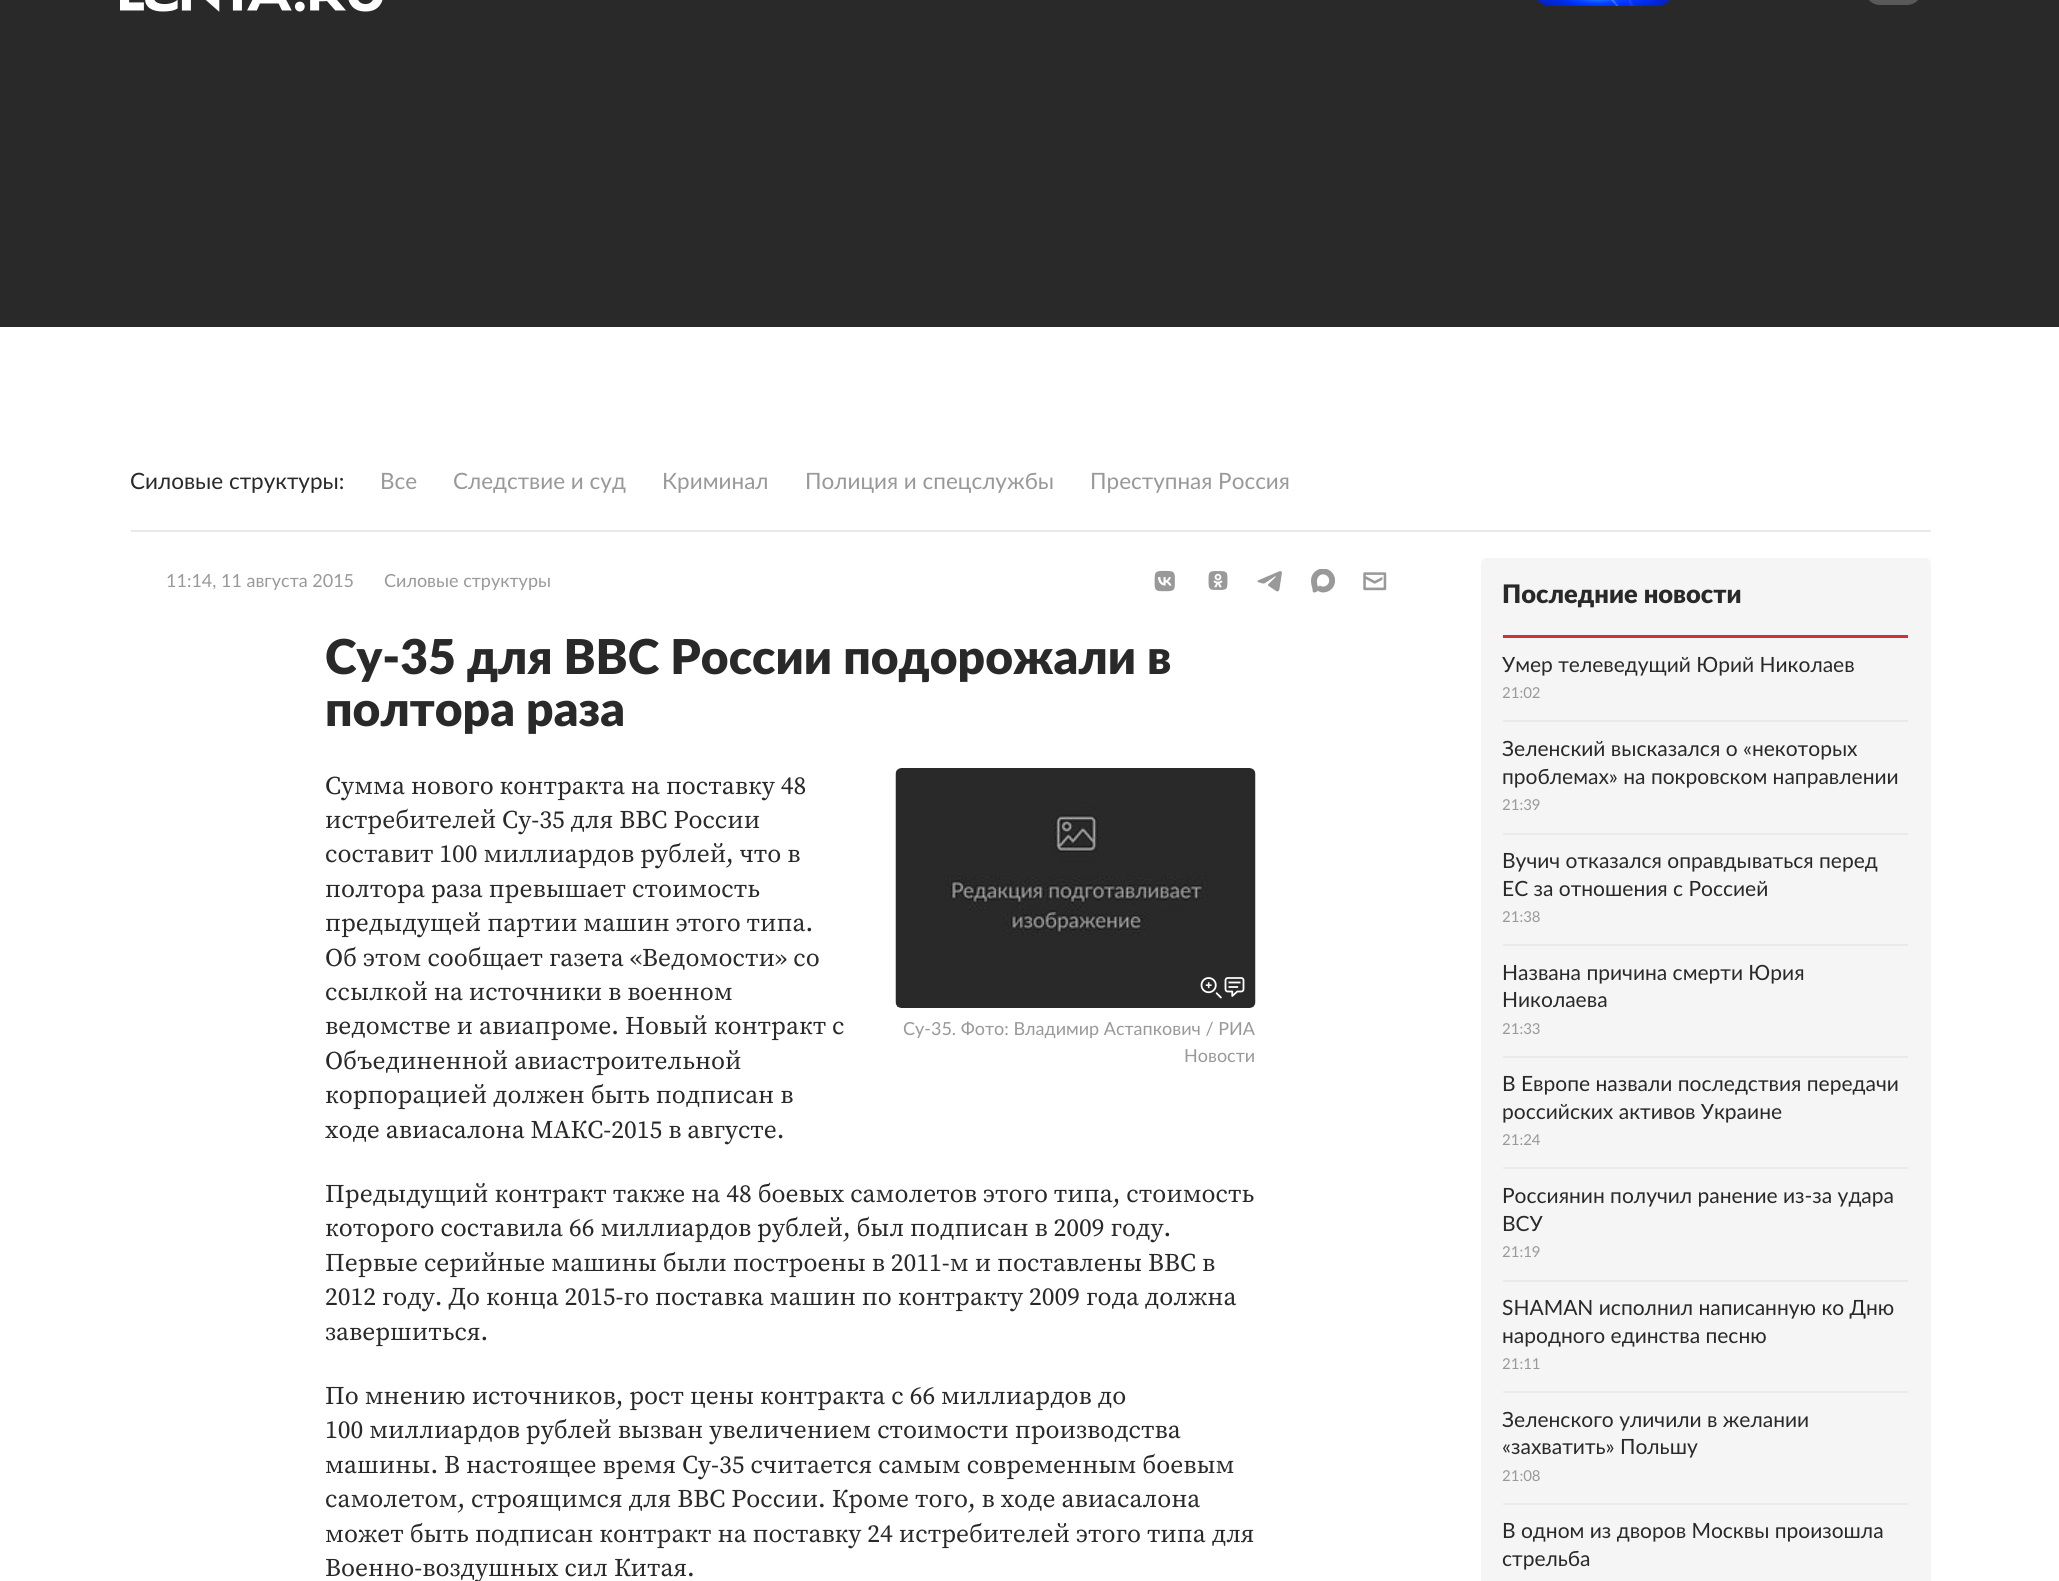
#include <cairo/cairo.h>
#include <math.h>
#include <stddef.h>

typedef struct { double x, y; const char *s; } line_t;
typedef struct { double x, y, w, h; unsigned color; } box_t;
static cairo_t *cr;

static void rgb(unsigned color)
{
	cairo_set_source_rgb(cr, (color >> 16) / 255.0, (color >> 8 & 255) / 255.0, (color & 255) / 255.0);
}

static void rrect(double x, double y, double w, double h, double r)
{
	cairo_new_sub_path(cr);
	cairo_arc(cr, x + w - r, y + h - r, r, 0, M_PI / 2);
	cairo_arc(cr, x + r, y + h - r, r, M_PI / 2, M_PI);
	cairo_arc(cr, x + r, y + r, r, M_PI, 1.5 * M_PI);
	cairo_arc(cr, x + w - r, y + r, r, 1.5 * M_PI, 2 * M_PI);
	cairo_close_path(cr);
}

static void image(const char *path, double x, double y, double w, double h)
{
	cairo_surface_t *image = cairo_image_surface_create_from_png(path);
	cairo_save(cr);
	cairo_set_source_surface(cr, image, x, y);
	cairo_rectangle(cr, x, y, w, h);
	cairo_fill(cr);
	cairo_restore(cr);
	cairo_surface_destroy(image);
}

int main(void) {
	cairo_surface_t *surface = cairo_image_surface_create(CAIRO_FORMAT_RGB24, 2059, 1581);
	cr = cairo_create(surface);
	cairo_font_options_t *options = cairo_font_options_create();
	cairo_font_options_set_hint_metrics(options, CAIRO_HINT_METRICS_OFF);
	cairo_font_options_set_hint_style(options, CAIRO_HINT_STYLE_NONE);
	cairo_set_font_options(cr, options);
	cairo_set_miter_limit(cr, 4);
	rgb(0xffffff);
	cairo_paint(cr);
	rgb(0x292929);
	cairo_rectangle(cr, 0, 0, 2059, 327);
	cairo_fill(cr);
	image("img/1.png", 120, 0, 263, 12);
	image("img/2.png", 1537, 0, 133, 6);
	rgb(0x595959);
	rrect(1865, -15, 57, 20, 15);
	cairo_fill(cr);
	rgb(0xeaeaea);
	cairo_rectangle(cr, 131, 530, 1800, 2);
	cairo_fill(cr);
	image("img/3.png", 1154, 570, 21, 22);
	image("img/4.png", 1208, 571, 20, 19);
	image("img/5.png", 1257, 571, 25, 21);
	image("img/6.png", 1311, 569, 24, 24);
	image("img/7.png", 1363, 572, 24, 19);
	image("img/8.png", 895, 768, 361, 240);
	image("img/9.png", 1200, 977, 45, 22);
	rgb(0xf5f5f5);
	rrect(1481, 558, 450, 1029, 6);
	cairo_fill(cr);
	{
		static const box_t items[] = {
			{1503, 635, 405, 3, 0xcc3333},
			{1503, 720, 405, 2, 0xeaeaea},
			{1503, 833, 405, 2, 0xeaeaea},
			{1503, 944, 405, 2, 0xeaeaea},
			{1503, 1056, 405, 2, 0xeaeaea},
			{1503, 1167, 405, 2, 0xeaeaea},
			{1503, 1280, 405, 2, 0xeaeaea},
			{1503, 1391, 405, 2, 0xeaeaea},
			{1503, 1503, 405, 2, 0xeaeaea},
		};
		for (size_t i = 0; i < sizeof items / sizeof *items; i++) {
			rgb(items[i].color);
			cairo_rectangle(cr, items[i].x, items[i].y, items[i].w, items[i].h);
			cairo_fill(cr);
		}
	}
	cairo_select_font_face(cr, "Lato", CAIRO_FONT_SLANT_NORMAL, CAIRO_FONT_WEIGHT_NORMAL);
	cairo_set_font_size(cr, 22.5);
	rgb(0x292929);
	cairo_move_to(cr, 130, 489);
	cairo_show_text(cr, "Силовые структуры:");
	rgb(0x999999);
	{
		static const line_t items[] = {
			{380, 489, "Все"},
			{453, 489, "Следствие и суд"},
			{662, 489, "Криминал"},
			{805, 489, "Полиция и спецслужбы"},
			{1090, 489, "Преступная Россия"},
		};
		for (size_t i = 0; i < sizeof items / sizeof *items; i++) {
			cairo_move_to(cr, items[i].x, items[i].y);
			cairo_show_text(cr, items[i].s);
		}
	}
	cairo_set_font_size(cr, 18);
	cairo_move_to(cr, 166, 587);
	cairo_show_text(cr, "11:14, 11 августа 2015");
	cairo_move_to(cr, 384, 587);
	cairo_show_text(cr, "Силовые структуры");
	cairo_select_font_face(cr, "Lato Black", CAIRO_FONT_SLANT_NORMAL, CAIRO_FONT_WEIGHT_NORMAL);
	cairo_set_font_size(cr, 48);
	rgb(0x292929);
	cairo_move_to(cr, 325, 674);
	cairo_show_text(cr, "Су-35 для ВВС России подорожали в");
	cairo_move_to(cr, 325, 726);
	cairo_show_text(cr, "полтора раза");
	cairo_select_font_face(cr, "Source Serif Pro", CAIRO_FONT_SLANT_NORMAL, CAIRO_FONT_WEIGHT_NORMAL);
	cairo_set_font_size(cr, 25.5);
	{
		static const line_t items[] = {
			{325, 794, "Сумма нового контракта на поставку 48"},
			{325, 828, "истребителей Су-35 для ВВС России"},
			{325, 862, "составит 100 миллиардов рублей, что в"},
			{325, 897, "полтора раза превышает стоимость"},
			{325, 931, "предыдущей партии машин этого типа."},
			{325, 966, "Об этом сообщает газета «Ведомости» со"},
			{325, 1000, "ссылкой на источники в военном"},
			{325, 1034, "ведомстве и авиапроме. Новый контракт с"},
			{325, 1069, "Объединенной авиастроительной"},
			{325, 1103, "корпорацией должен быть подписан в"},
			{325, 1138, "ходе авиасалона МАКС-2015 в августе."},
			{325, 1202, "Предыдущий контракт также на 48 боевых самолетов этого типа, стоимость"},
			{325, 1236, "которого составила 66 миллиардов рублей, был подписан в 2009 году."},
			{325, 1271, "Первые серийные машины были построены в 2011-м и поставлены ВВС в"},
			{325, 1305, "2012 году. До конца 2015-го поставка машин по контракту 2009 года должна"},
			{325, 1340, "завершиться."},
			{325, 1404, "По мнению источников, рост цены контракта с 66 миллиардов до"},
			{325, 1438, "100 миллиардов рублей вызван увеличением стоимости производства"},
			{325, 1473, "машины. В настоящее время Су-35 считается самым современным боевым"},
			{325, 1507, "самолетом, строящимся для ВВС России. Кроме того, в ходе авиасалона"},
			{325, 1542, "может быть подписан контракт на поставку 24 истребителей этого типа для"},
			{325, 1576, "Военно-воздушных сил Китая."},
		};
		for (size_t i = 0; i < sizeof items / sizeof *items; i++) {
			cairo_move_to(cr, items[i].x, items[i].y);
			cairo_show_text(cr, items[i].s);
		}
	}
	cairo_select_font_face(cr, "Lato", CAIRO_FONT_SLANT_NORMAL, CAIRO_FONT_WEIGHT_NORMAL);
	cairo_set_font_size(cr, 18);
	rgb(0x999999);
	cairo_move_to(cr, 903, 1035);
	cairo_show_text(cr, "Су-35. Фото: Владимир Астапкович / РИА");
	cairo_move_to(cr, 1184, 1062);
	cairo_show_text(cr, "Новости");
	cairo_select_font_face(cr, "Lato Black", CAIRO_FONT_SLANT_NORMAL, CAIRO_FONT_WEIGHT_NORMAL);
	cairo_set_font_size(cr, 25.5);
	rgb(0x292929);
	cairo_move_to(cr, 1502, 603);
	cairo_show_text(cr, "Последние новости");
	cairo_select_font_face(cr, "Lato", CAIRO_FONT_SLANT_NORMAL, CAIRO_FONT_WEIGHT_NORMAL);
	cairo_set_font_size(cr, 21);
	cairo_move_to(cr, 1502, 672);
	cairo_show_text(cr, "Умер телеведущий Юрий Николаев");
	cairo_set_font_size(cr, 15);
	rgb(0x999999);
	cairo_move_to(cr, 1502, 698);
	cairo_show_text(cr, "21:02");
	cairo_set_font_size(cr, 21);
	rgb(0x292929);
	cairo_move_to(cr, 1502, 756);
	cairo_show_text(cr, "Зеленский высказался о «некоторых");
	cairo_move_to(cr, 1502, 784);
	cairo_show_text(cr, "проблемах» на покровском направлении");
	cairo_set_font_size(cr, 15);
	rgb(0x999999);
	cairo_move_to(cr, 1502, 810);
	cairo_show_text(cr, "21:39");
	cairo_set_font_size(cr, 21);
	rgb(0x292929);
	cairo_move_to(cr, 1502, 868);
	cairo_show_text(cr, "Вучич отказался оправдываться перед");
	cairo_move_to(cr, 1502, 896);
	cairo_show_text(cr, "ЕС за отношения с Россией");
	cairo_set_font_size(cr, 15);
	rgb(0x999999);
	cairo_move_to(cr, 1502, 922);
	cairo_show_text(cr, "21:38");
	cairo_set_font_size(cr, 21);
	rgb(0x292929);
	cairo_move_to(cr, 1502, 980);
	cairo_show_text(cr, "Названа причина смерти Юрия");
	cairo_move_to(cr, 1502, 1007);
	cairo_show_text(cr, "Николаева");
	cairo_set_font_size(cr, 15);
	rgb(0x999999);
	cairo_move_to(cr, 1502, 1034);
	cairo_show_text(cr, "21:33");
	cairo_set_font_size(cr, 21);
	rgb(0x292929);
	cairo_move_to(cr, 1502, 1091);
	cairo_show_text(cr, "В Европе назвали последствия передачи");
	cairo_move_to(cr, 1502, 1119);
	cairo_show_text(cr, "российских активов Украине");
	cairo_set_font_size(cr, 15);
	rgb(0x999999);
	cairo_move_to(cr, 1502, 1145);
	cairo_show_text(cr, "21:24");
	cairo_set_font_size(cr, 21);
	rgb(0x292929);
	cairo_move_to(cr, 1502, 1203);
	cairo_show_text(cr, "Россиянин получил ранение из-за удара");
	cairo_move_to(cr, 1502, 1231);
	cairo_show_text(cr, "ВСУ");
	cairo_set_font_size(cr, 15);
	rgb(0x999999);
	cairo_move_to(cr, 1502, 1257);
	cairo_show_text(cr, "21:19");
	cairo_set_font_size(cr, 21);
	rgb(0x292929);
	cairo_move_to(cr, 1502, 1315);
	cairo_show_text(cr, "SHAMAN исполнил написанную ко Дню");
	cairo_move_to(cr, 1502, 1343);
	cairo_show_text(cr, "народного единства песню");
	cairo_set_font_size(cr, 15);
	rgb(0x999999);
	cairo_move_to(cr, 1502, 1369);
	cairo_show_text(cr, "21:11");
	cairo_set_font_size(cr, 21);
	rgb(0x292929);
	cairo_move_to(cr, 1502, 1427);
	cairo_show_text(cr, "Зеленского уличили в желании");
	cairo_move_to(cr, 1502, 1454);
	cairo_show_text(cr, "«захватить» Польшу");
	cairo_set_font_size(cr, 15);
	rgb(0x999999);
	cairo_move_to(cr, 1502, 1481);
	cairo_show_text(cr, "21:08");
	cairo_set_font_size(cr, 21);
	rgb(0x292929);
	cairo_move_to(cr, 1502, 1538);
	cairo_show_text(cr, "В одном из дворов Москвы произошла");
	cairo_move_to(cr, 1502, 1566);
	cairo_show_text(cr, "стрельба");
	cairo_surface_write_to_png(surface, "page.png");
	cairo_font_options_destroy(options);
	cairo_destroy(cr);
	cairo_surface_destroy(surface);
	return 0;
}
